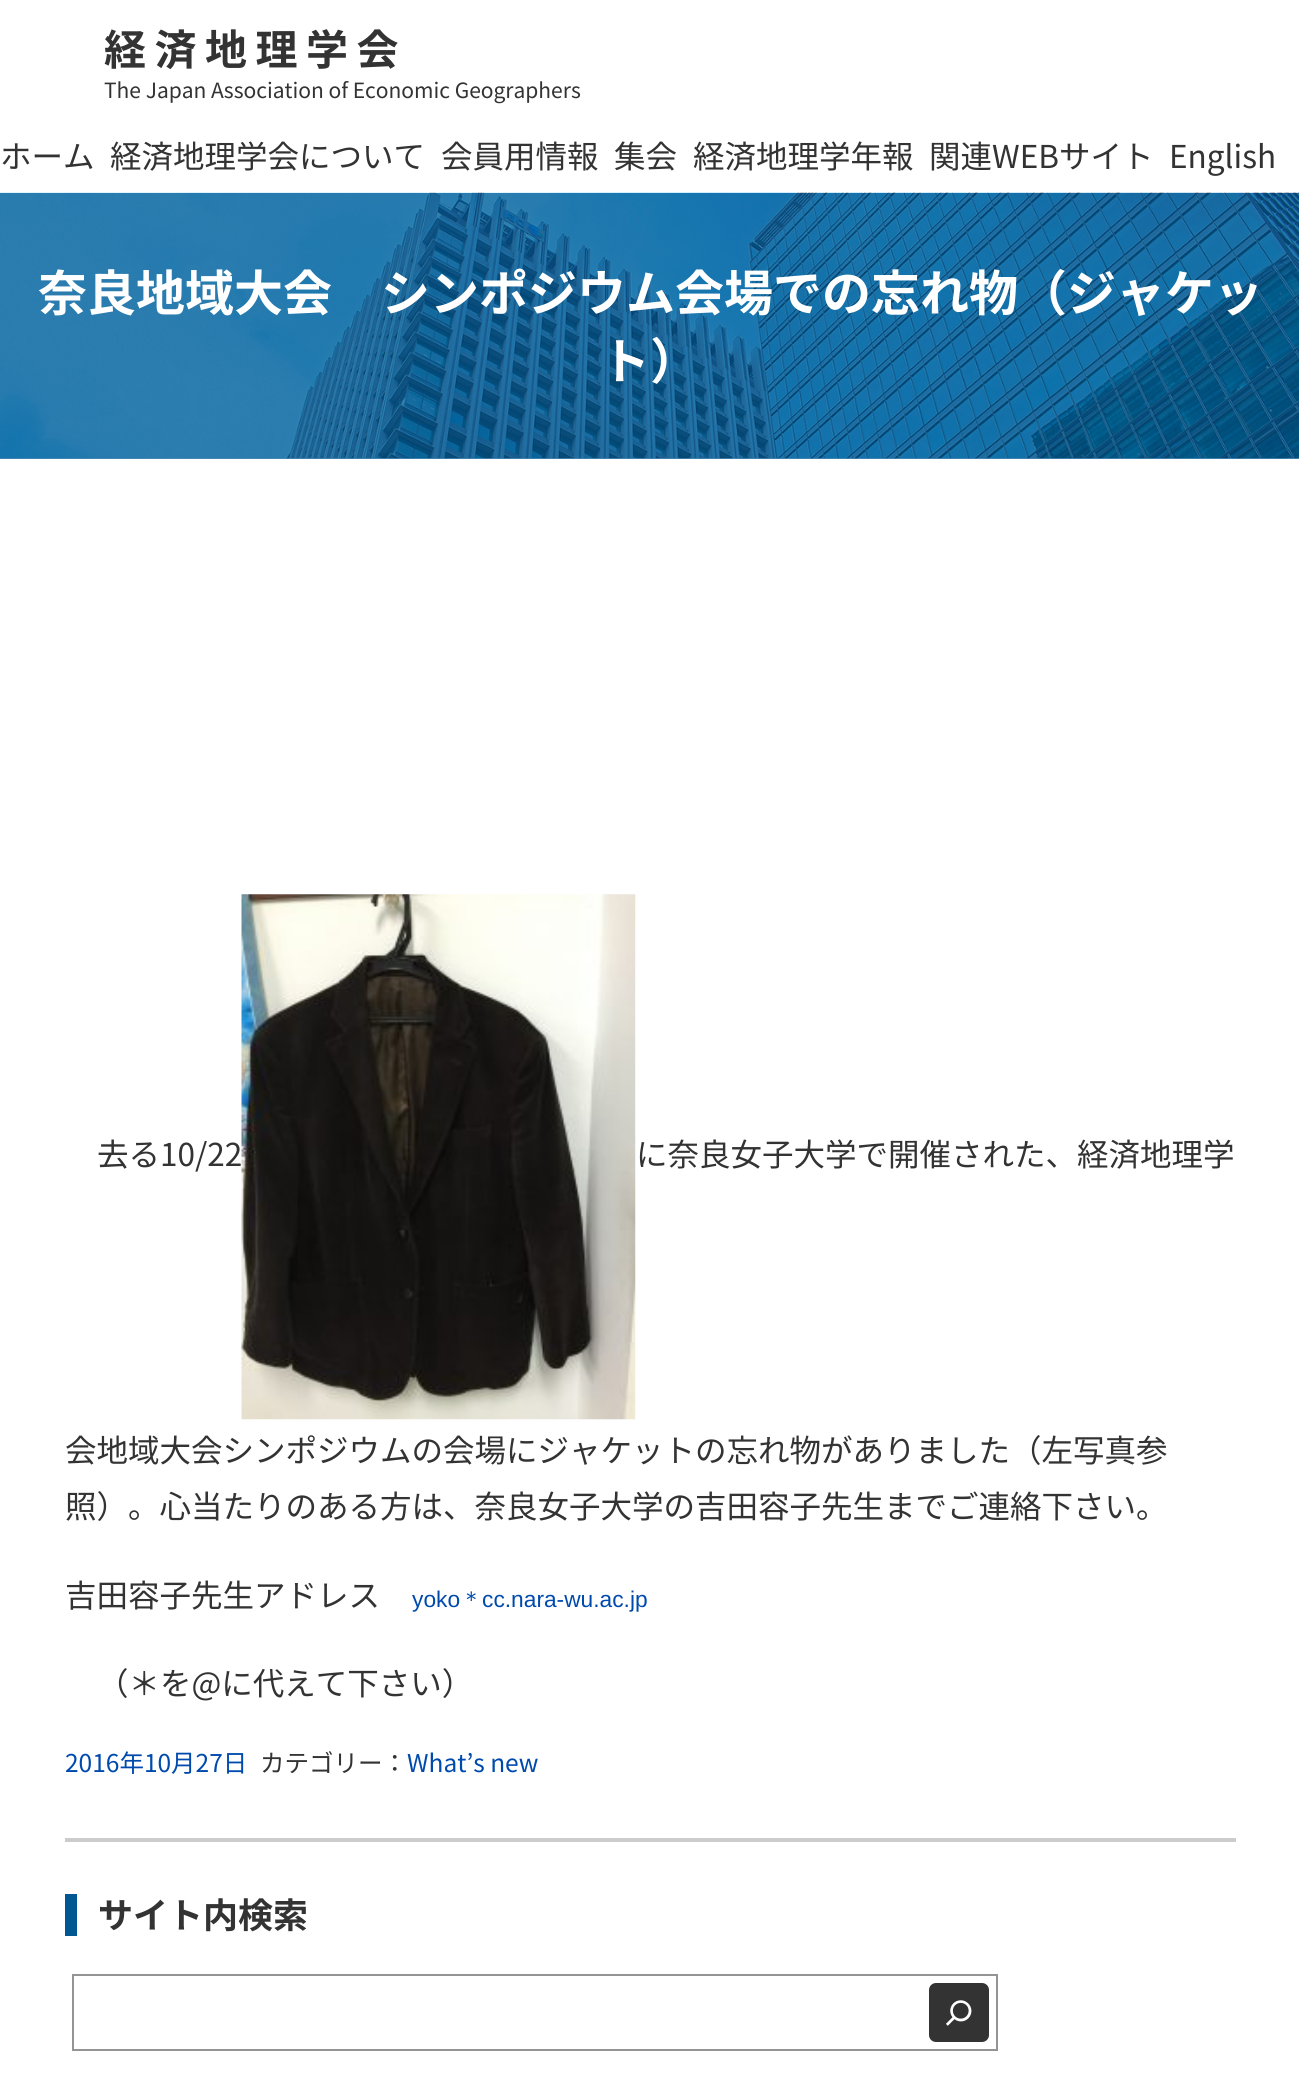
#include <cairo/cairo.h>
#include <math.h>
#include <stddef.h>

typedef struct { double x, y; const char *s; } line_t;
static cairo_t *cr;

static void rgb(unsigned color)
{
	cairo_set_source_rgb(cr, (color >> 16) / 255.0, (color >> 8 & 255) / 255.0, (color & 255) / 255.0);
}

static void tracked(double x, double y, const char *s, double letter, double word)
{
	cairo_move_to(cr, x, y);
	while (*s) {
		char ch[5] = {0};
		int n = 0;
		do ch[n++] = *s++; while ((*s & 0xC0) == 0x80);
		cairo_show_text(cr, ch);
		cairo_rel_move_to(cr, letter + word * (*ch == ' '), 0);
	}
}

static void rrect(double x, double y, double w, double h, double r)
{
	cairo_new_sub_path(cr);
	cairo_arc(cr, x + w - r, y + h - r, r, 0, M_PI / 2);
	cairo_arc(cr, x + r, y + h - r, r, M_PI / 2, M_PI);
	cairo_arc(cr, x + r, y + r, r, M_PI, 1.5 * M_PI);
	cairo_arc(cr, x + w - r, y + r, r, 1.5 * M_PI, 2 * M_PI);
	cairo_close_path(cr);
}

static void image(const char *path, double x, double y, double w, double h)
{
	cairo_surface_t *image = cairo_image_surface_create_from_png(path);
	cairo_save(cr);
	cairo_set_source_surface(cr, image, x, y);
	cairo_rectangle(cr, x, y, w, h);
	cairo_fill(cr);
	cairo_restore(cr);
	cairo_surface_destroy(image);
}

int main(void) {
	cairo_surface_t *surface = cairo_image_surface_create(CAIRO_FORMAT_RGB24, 1299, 2079);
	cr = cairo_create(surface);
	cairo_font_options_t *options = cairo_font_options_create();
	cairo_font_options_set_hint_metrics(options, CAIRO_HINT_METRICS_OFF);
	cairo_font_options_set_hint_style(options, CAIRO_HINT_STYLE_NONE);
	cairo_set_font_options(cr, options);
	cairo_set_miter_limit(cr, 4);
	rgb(0xffffff);
	cairo_paint(cr);
	rgb(0x4d89b3);
	cairo_rectangle(cr, 0, 458, 1299, 1);
	cairo_fill(cr);
	image("img/1.png", 0, 192, 1299, 267);
	image("img/2.png", 241, 894, 395, 526);
	rgb(0xcccccc);
	cairo_rectangle(cr, 65, 1838, 1171, 4);
	cairo_fill(cr);
	rgb(0x005792);
	cairo_rectangle(cr, 65, 1894, 12, 42);
	cairo_fill(cr);
	cairo_rectangle(cr, 73, 1975, 924, 75);
	rgb(0x949494);
	cairo_stroke(cr);
	rgb(0x333333);
	rrect(929, 1983, 60, 59, 7);
	cairo_fill(cr);
	image("img/3.png", 946, 2000, 26, 26);
	cairo_select_font_face(cr, "Noto Sans JP", CAIRO_FONT_SLANT_NORMAL, CAIRO_FONT_WEIGHT_BOLD);
	cairo_set_font_size(cr, 42);
	tracked(104, 65, "経済地理学会", 8.5, 0);
	cairo_select_font_face(cr, "Noto Sans JP", CAIRO_FONT_SLANT_NORMAL, CAIRO_FONT_WEIGHT_NORMAL);
	cairo_set_font_size(cr, 21);
	cairo_move_to(cr, 104, 98);
	cairo_show_text(cr, "The Japan Association of Economic Geographers");
	cairo_set_font_size(cr, 31.5);
	{
		static const line_t items[] = {
			{0, 168, "ホーム"},
			{110, 168, "経済地理学会について"},
			{441, 168, "会員用情報"},
			{614, 168, "集会"},
			{693, 168, "経済地理学年報"},
			{929, 168, "関連WEBサイト"},
			{1169, 168, "English"},
		};
		for (size_t i = 0; i < sizeof items / sizeof *items; i++) {
			cairo_move_to(cr, items[i].x, items[i].y);
			cairo_show_text(cr, items[i].s);
		}
	}
	cairo_select_font_face(cr, "Noto Sans JP", CAIRO_FONT_SLANT_NORMAL, CAIRO_FONT_WEIGHT_BOLD);
	cairo_set_font_size(cr, 49);
	rgb(0xffffff);
	cairo_move_to(cr, 38, 311);
	cairo_show_text(cr, "奈良地域大会　シンポジウム会場での忘れ物（ジャケッ");
	cairo_move_to(cr, 601, 379);
	cairo_show_text(cr, "ト）");
	cairo_select_font_face(cr, "Noto Sans JP", CAIRO_FONT_SLANT_NORMAL, CAIRO_FONT_WEIGHT_NORMAL);
	cairo_set_font_size(cr, 31.5);
	rgb(0x333333);
	{
		static const line_t items[] = {
			{97, 1166, "去る10/22"},
			{636, 1166, "に奈良女子大学で開催された、経済地理学"},
			{65, 1462, "会地域大会シンポジウムの会場にジャケットの忘れ物がありました（左写真参"},
			{65, 1518, "照）。心当たりのある方は、奈良女子大学の吉田容子先生までご連絡下さい。"},
			{65, 1607, "吉田容子先生アドレス"},
		};
		for (size_t i = 0; i < sizeof items / sizeof *items; i++) {
			cairo_move_to(cr, items[i].x, items[i].y);
			cairo_show_text(cr, items[i].s);
		}
	}
	cairo_select_font_face(cr, "Liberation Sans", CAIRO_FONT_SLANT_NORMAL, CAIRO_FONT_WEIGHT_NORMAL);
	cairo_set_font_size(cr, 22.75);
	rgb(0x004aad);
	cairo_move_to(cr, 412, 1607);
	cairo_show_text(cr, "yoko");
	cairo_select_font_face(cr, "WenQuanYi Zen Hei Medium", CAIRO_FONT_SLANT_NORMAL, CAIRO_FONT_WEIGHT_NORMAL);
	cairo_move_to(cr, 460, 1607);
	cairo_show_text(cr, "＊");
	cairo_select_font_face(cr, "Liberation Sans", CAIRO_FONT_SLANT_NORMAL, CAIRO_FONT_WEIGHT_NORMAL);
	cairo_move_to(cr, 482, 1607);
	cairo_show_text(cr, "cc.nara-wu.ac.jp");
	cairo_select_font_face(cr, "Noto Sans JP", CAIRO_FONT_SLANT_NORMAL, CAIRO_FONT_WEIGHT_NORMAL);
	cairo_set_font_size(cr, 31.5);
	rgb(0x333333);
	cairo_move_to(cr, 97, 1695);
	cairo_show_text(cr, "（＊を@に代えて下さい）");
	cairo_set_font_size(cr, 24.5);
	rgb(0x004aad);
	cairo_move_to(cr, 65, 1772);
	cairo_show_text(cr, "2016年10月27日");
	rgb(0x333333);
	cairo_move_to(cr, 260, 1772);
	cairo_show_text(cr, "カテゴリー：");
	rgb(0x004aad);
	cairo_move_to(cr, 407, 1772);
	cairo_show_text(cr, "What’s new");
	cairo_select_font_face(cr, "Noto Sans JP", CAIRO_FONT_SLANT_NORMAL, CAIRO_FONT_WEIGHT_BOLD);
	cairo_set_font_size(cr, 35);
	rgb(0x333333);
	cairo_move_to(cr, 98, 1928);
	cairo_show_text(cr, "サイト内検索");
	cairo_surface_write_to_png(surface, "page.png");
	cairo_font_options_destroy(options);
	cairo_destroy(cr);
	cairo_surface_destroy(surface);
	return 0;
}
